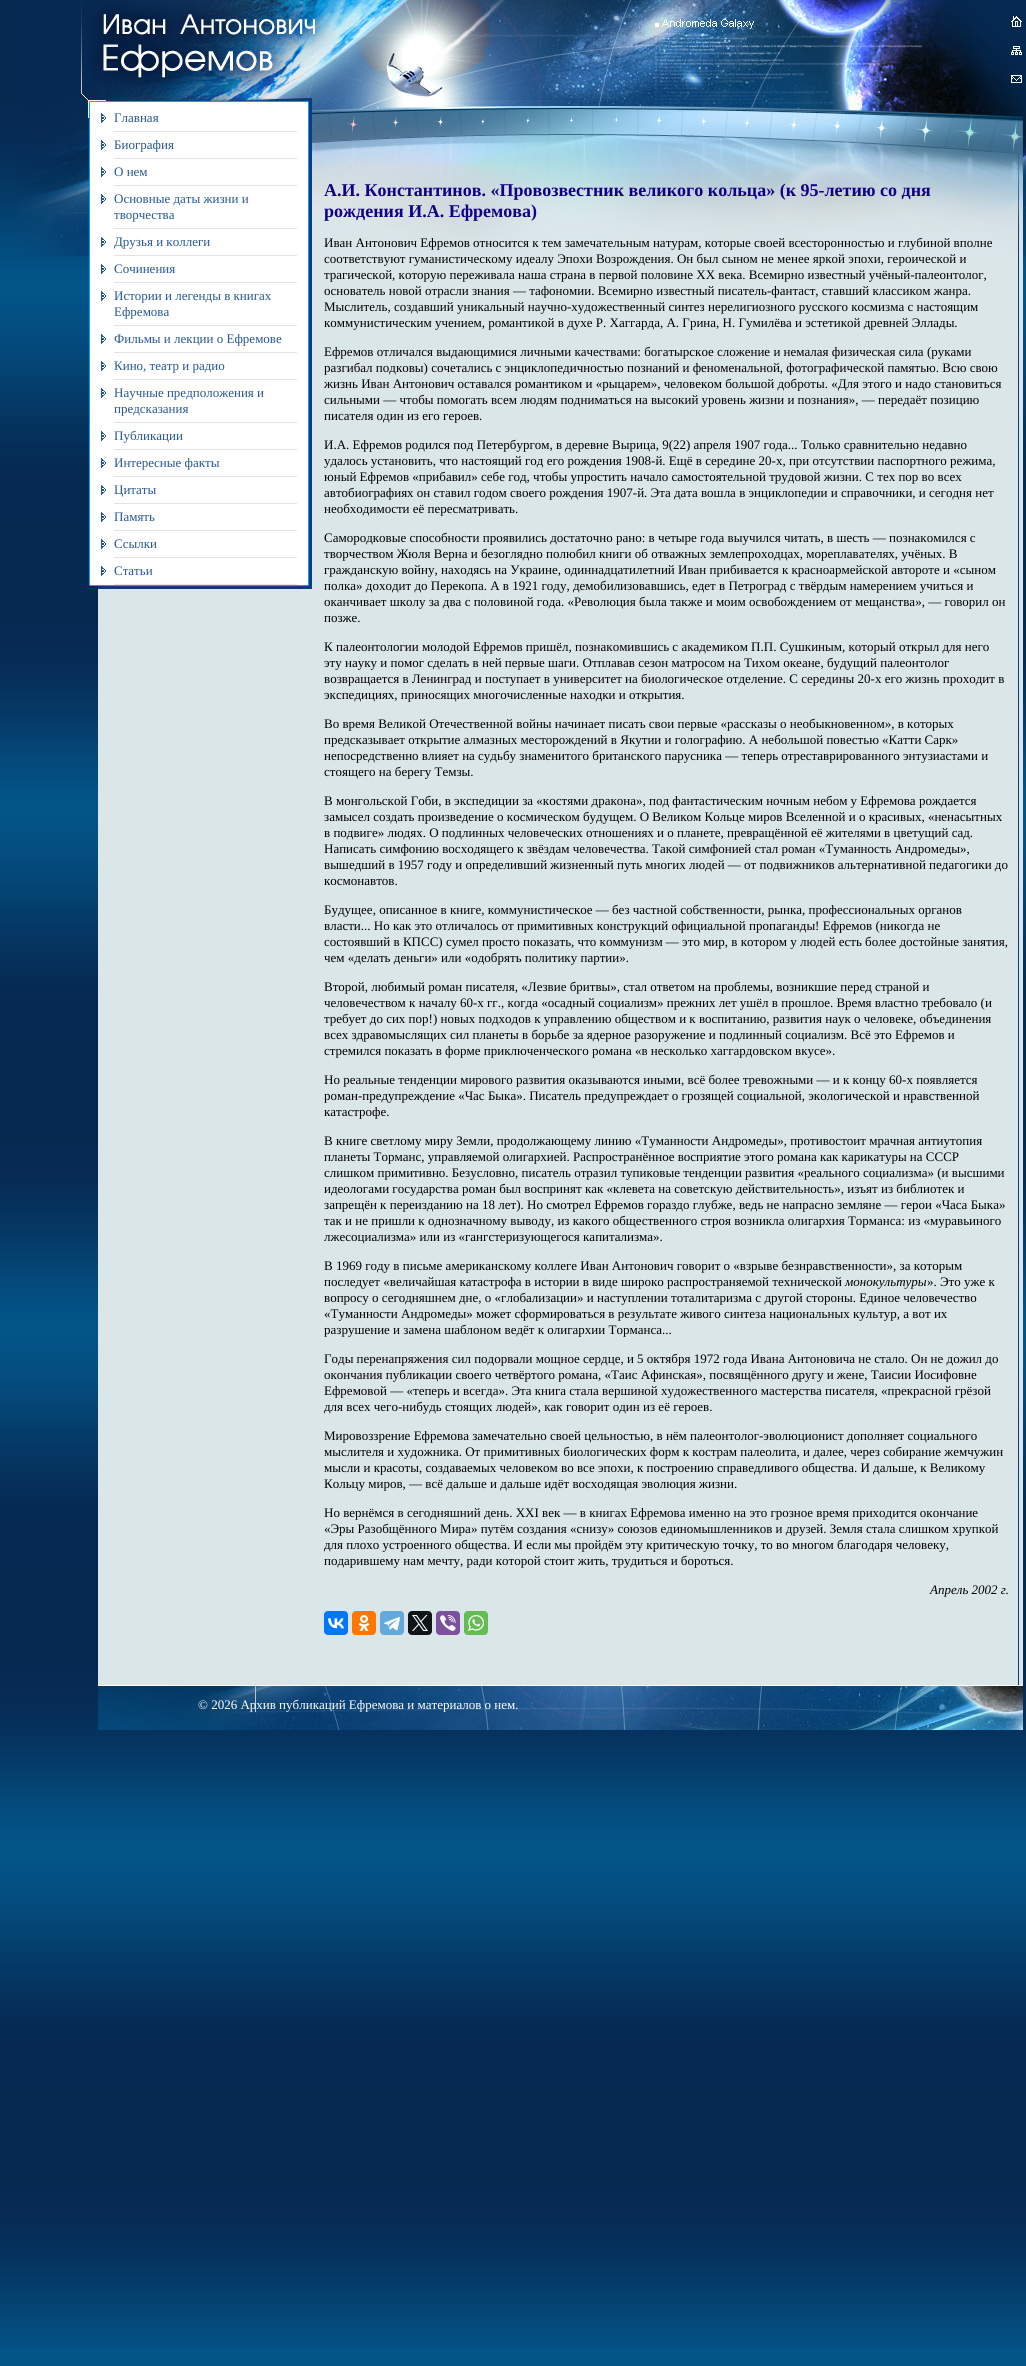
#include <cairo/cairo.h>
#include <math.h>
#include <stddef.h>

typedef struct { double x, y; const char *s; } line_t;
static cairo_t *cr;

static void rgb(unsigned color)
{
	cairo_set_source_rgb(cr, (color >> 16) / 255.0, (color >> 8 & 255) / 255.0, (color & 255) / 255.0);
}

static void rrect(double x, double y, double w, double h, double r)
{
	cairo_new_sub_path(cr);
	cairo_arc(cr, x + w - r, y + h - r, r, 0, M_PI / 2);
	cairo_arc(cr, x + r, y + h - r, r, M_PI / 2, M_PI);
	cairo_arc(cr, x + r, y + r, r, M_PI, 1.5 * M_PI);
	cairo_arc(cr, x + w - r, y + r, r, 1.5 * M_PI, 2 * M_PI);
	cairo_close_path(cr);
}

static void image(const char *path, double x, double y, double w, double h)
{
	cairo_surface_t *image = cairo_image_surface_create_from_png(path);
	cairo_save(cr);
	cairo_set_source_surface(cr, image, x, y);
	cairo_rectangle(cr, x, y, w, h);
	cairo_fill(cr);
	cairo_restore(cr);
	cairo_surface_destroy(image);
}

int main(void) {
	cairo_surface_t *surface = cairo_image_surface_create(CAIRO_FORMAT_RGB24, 1026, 2366);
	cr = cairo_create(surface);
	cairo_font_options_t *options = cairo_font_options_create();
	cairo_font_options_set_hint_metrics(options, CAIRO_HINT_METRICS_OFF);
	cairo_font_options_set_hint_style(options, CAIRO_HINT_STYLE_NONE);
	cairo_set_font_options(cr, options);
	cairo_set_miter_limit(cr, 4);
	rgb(0x035487);
	cairo_paint(cr);
	image("img/1.png", 0, 0, 1026, 2348);
	image("img/2.png", 18, 0, 1008, 256);
	image("img/6.png", 98, 256, 925, 1429);
	image("img/3.png", 89, 105, 223, 480);
	image("img/4.png", 101, 113, 5, 10);
	rgb(0xe3e3e3);
	cairo_rectangle(cr, 114, 131, 183, 1);
	cairo_fill(cr);
	image("img/4.png", 101, 140, 5, 10);
	cairo_rectangle(cr, 114, 158, 183, 1);
	cairo_fill(cr);
	image("img/4.png", 101, 167, 5, 10);
	cairo_rectangle(cr, 114, 185, 183, 1);
	cairo_fill(cr);
	image("img/4.png", 101, 194, 5, 10);
	cairo_rectangle(cr, 114, 228, 183, 1);
	cairo_fill(cr);
	image("img/4.png", 101, 237, 5, 10);
	cairo_rectangle(cr, 114, 255, 183, 1);
	cairo_fill(cr);
	image("img/4.png", 101, 264, 5, 10);
	cairo_rectangle(cr, 114, 282, 183, 1);
	cairo_fill(cr);
	image("img/4.png", 101, 291, 5, 10);
	cairo_rectangle(cr, 114, 325, 183, 1);
	cairo_fill(cr);
	image("img/4.png", 101, 334, 5, 10);
	cairo_rectangle(cr, 114, 352, 183, 1);
	cairo_fill(cr);
	image("img/4.png", 101, 361, 5, 10);
	cairo_rectangle(cr, 114, 379, 183, 1);
	cairo_fill(cr);
	image("img/4.png", 101, 388, 5, 10);
	cairo_rectangle(cr, 114, 422, 183, 1);
	cairo_fill(cr);
	image("img/4.png", 101, 431, 5, 10);
	cairo_rectangle(cr, 114, 449, 183, 1);
	cairo_fill(cr);
	image("img/4.png", 101, 458, 5, 10);
	cairo_rectangle(cr, 114, 476, 183, 1);
	cairo_fill(cr);
	image("img/4.png", 101, 485, 5, 10);
	cairo_rectangle(cr, 114, 503, 183, 1);
	cairo_fill(cr);
	image("img/4.png", 101, 512, 5, 10);
	cairo_rectangle(cr, 114, 530, 183, 1);
	cairo_fill(cr);
	image("img/4.png", 101, 539, 5, 10);
	cairo_rectangle(cr, 114, 557, 183, 1);
	cairo_fill(cr);
	image("img/4.png", 101, 566, 5, 10);
	cairo_rectangle(cr, 114, 584, 183, 1);
	cairo_fill(cr);
	image("img/5.png", 89, 585, 223, 4);
	rgb(0x0077ff);
	rrect(324, 1611, 24, 24, 4);
	cairo_fill(cr);
	image("img/7.png", 328, 1618, 16, 11);
	rgb(0xff7700);
	rrect(352, 1611, 24, 24, 4);
	cairo_fill(cr);
	image("img/8.png", 358, 1615, 12, 16);
	rgb(0x64a9dc);
	rrect(380, 1611, 24, 24, 4);
	cairo_fill(cr);
	image("img/9.png", 384, 1617, 16, 14);
	rgb(0x0f1419);
	rrect(408, 1611, 24, 24, 4);
	cairo_fill(cr);
	image("img/10.png", 412, 1615, 16, 16);
	rgb(0x7b519d);
	rrect(436, 1611, 24, 24, 4);
	cairo_fill(cr);
	image("img/11.png", 440, 1615, 16, 16);
	rgb(0x65bc54);
	rrect(464, 1611, 24, 24, 4);
	cairo_fill(cr);
	image("img/12.png", 468, 1615, 16, 16);
	image("img/13.png", 98, 1685, 925, 45);
	cairo_select_font_face(cr, "Liberation Serif", CAIRO_FONT_SLANT_NORMAL, CAIRO_FONT_WEIGHT_NORMAL);
	cairo_set_font_size(cr, 13);
	rgb(0x265792);
	{
		static const line_t items[] = {
			{114, 122, "Главная"},
			{114, 149, "Биография"},
			{114, 176, "О нем"},
			{114, 203, "Основные даты жизни и"},
			{114, 219, "творчества"},
			{114, 246, "Друзья и коллеги"},
			{114, 273, "Сочинения"},
			{114, 300, "Истории и легенды в книгах"},
			{114, 316, "Ефремова"},
			{114, 343, "Фильмы и лекции о Ефремове"},
			{114, 370, "Кино, театр и радио"},
			{114, 397, "Научные предположения и"},
			{114, 413, "предсказания"},
			{114, 440, "Публикации"},
			{114, 467, "Интересные факты"},
			{114, 494, "Цитаты"},
			{114, 521, "Память"},
			{114, 548, "Ссылки"},
			{114, 575, "Статьи"},
		};
		for (size_t i = 0; i < sizeof items / sizeof *items; i++) {
			cairo_move_to(cr, items[i].x, items[i].y);
			cairo_show_text(cr, items[i].s);
		}
	}
	cairo_select_font_face(cr, "Liberation Serif", CAIRO_FONT_SLANT_NORMAL, CAIRO_FONT_WEIGHT_BOLD);
	cairo_set_font_size(cr, 18);
	rgb(0x120089);
	cairo_move_to(cr, 324, 196);
	cairo_show_text(cr, "А.И. Константинов. «Провозвестник великого кольца» (к 95-летию со дня");
	cairo_move_to(cr, 324, 217);
	cairo_show_text(cr, "рождения И.А. Ефремова)");
	cairo_select_font_face(cr, "Liberation Serif", CAIRO_FONT_SLANT_NORMAL, CAIRO_FONT_WEIGHT_NORMAL);
	cairo_set_font_size(cr, 13);
	rgb(0x000000);
	{
		static const line_t items[] = {
			{324, 247, "Иван Антонович Ефремов относится к тем замечательным натурам, которые своей всесторонностью и глубиной вполне"},
			{324, 263, "соответствуют гуманистическому идеалу Эпохи Возрождения. Он был сыном не менее яркой эпохи, героической и"},
			{324, 279, "трагической, которую переживала наша страна в первой половине XX века. Всемирно известный учёный-палеонтолог,"},
			{324, 295, "основатель новой отрасли знания — тафономии. Всемирно известный писатель-фантаст, ставший классиком жанра."},
			{324, 311, "Мыслитель, создавший уникальный научно-художественный синтез нерелигиозного русского космизма с настоящим"},
			{324, 327, "коммунистическим учением, романтикой в духе Р. Хаггарда, А. Грина, Н. Гумилёва и эстетикой древней Эллады."},
			{324, 356, "Ефремов отличался выдающимися личными качествами: богатырское сложение и немалая физическая сила (руками"},
			{324, 372, "разгибал подковы) сочетались с энциклопедичностью познаний и феноменальной, фотографической памятью. Всю свою"},
			{324, 388, "жизнь Иван Антонович оставался романтиком и «рыцарем», человеком большой доброты. «Для этого и надо становиться"},
			{324, 404, "сильными — чтобы помогать всем людям подниматься на высокий уровень жизни и познания», — передаёт позицию"},
			{324, 420, "писателя один из его героев."},
			{324, 449, "И.А. Ефремов родился под Петербургом, в деревне Вырица, 9(22) апреля 1907 года... Только сравнительно недавно"},
			{324, 465, "удалось установить, что настоящий год его рождения 1908-й. Ещё в середине 20-х, при отсутствии паспортного режима,"},
			{324, 481, "юный Ефремов «прибавил» себе год, чтобы упростить начало самостоятельной трудовой жизни. С тех пор во всех"},
			{324, 497, "автобиографиях он ставил годом своего рождения 1907-й. Эта дата вошла в энциклопедии и справочники, и сегодня нет"},
			{324, 513, "необходимости её пересматривать."},
			{324, 542, "Самородковые способности проявились достаточно рано: в четыре года выучился читать, в шесть — познакомился с"},
			{324, 558, "творчеством Жюля Верна и безоглядно полюбил книги об отважных землепроходцах, мореплавателях, учёных. В"},
			{324, 574, "гражданскую войну, находясь на Украине, одиннадцатилетний Иван прибивается к красноармейской автороте и «сыном"},
			{324, 590, "полка» доходит до Перекопа. А в 1921 году, демобилизовавшись, едет в Петроград с твёрдым намерением учиться и"},
			{324, 606, "оканчивает школу за два с половиной года. «Революция была также и моим освобождением от мещанства», — говорил он"},
			{324, 622, "позже."},
			{324, 651, "К палеонтологии молодой Ефремов пришёл, познакомившись с академиком П.П. Сушкиным, который открыл для него"},
			{324, 667, "эту науку и помог сделать в ней первые шаги. Отплавав сезон матросом на Тихом океане, будущий палеонтолог"},
			{324, 683, "возвращается в Ленинград и поступает в университет на биологическое отделение. С середины 20-х его жизнь проходит в"},
			{324, 699, "экспедициях, приносящих многочисленные находки и открытия."},
			{324, 728, "Во время Великой Отечественной войны начинает писать свои первые «рассказы о необыкновенном», в которых"},
			{324, 744, "предсказывает открытие алмазных месторождений в Якутии и голографию. А небольшой повестью «Катти Сарк»"},
			{324, 760, "непосредственно влияет на судьбу знаменитого британского парусника — теперь отреставрированного энтузиастами и"},
			{324, 776, "стоящего на берегу Темзы."},
			{324, 805, "В монгольской Гоби, в экспедиции за «костями дракона», под фантастическим ночным небом у Ефремова рождается"},
			{324, 821, "замысел создать произведение о космическом будущем. О Великом Кольце миров Вселенной и о красивых, «ненасытных"},
			{324, 837, "в подвиге» людях. О подлинных человеческих отношениях и о планете, превращённой её жителями в цветущий сад."},
			{324, 853, "Написать симфонию восходящего к звёздам человечества. Такой симфонией стал роман «Туманность Андромеды»,"},
			{324, 869, "вышедший в 1957 году и определивший жизненный путь многих людей — от подвижников альтернативной педагогики до"},
			{324, 885, "космонавтов."},
			{324, 914, "Будущее, описанное в книге, коммунистическое — без частной собственности, рынка, профессиональных органов"},
			{324, 930, "власти... Но как это отличалось от примитивных конструкций официальной пропаганды! Ефремов (никогда не"},
			{324, 946, "состоявший в КПСС) сумел просто показать, что коммунизм — это мир, в котором у людей есть более достойные занятия,"},
			{324, 962, "чем «делать деньги» или «одобрять политику партии»."},
			{324, 991, "Второй, любимый роман писателя, «Лезвие бритвы», стал ответом на проблемы, возникшие перед страной и"},
			{324, 1007, "человечеством к началу 60-х гг., когда «осадный социализм» прежних лет ушёл в прошлое. Время властно требовало (и"},
			{324, 1023, "требует до сих пор!) новых подходов к управлению обществом и к воспитанию, развития наук о человеке, объединения"},
			{324, 1039, "всех здравомыслящих сил планеты в борьбе за ядерное разоружение и подлинный социализм. Всё это Ефремов и"},
			{324, 1055, "стремился показать в форме приключенческого романа «в несколько хаггардовском вкусе»."},
			{324, 1084, "Но реальные тенденции мирового развития оказываются иными, всё более тревожными — и к концу 60-х появляется"},
			{324, 1100, "роман-предупреждение «Час Быка». Писатель предупреждает о грозящей социальной, экологической и нравственной"},
			{324, 1116, "катастрофе."},
			{324, 1145, "В книге светлому миру Земли, продолжающему линию «Туманности Андромеды», противостоит мрачная антиутопия"},
			{324, 1161, "планеты Торманс, управляемой олигархией. Распространённое восприятие этого романа как карикатуры на СССР"},
			{324, 1177, "слишком примитивно. Безусловно, писатель отразил тупиковые тенденции развития «реального социализма» (и высшими"},
			{324, 1193, "идеологами государства роман был воспринят как «клевета на советскую действительность», изъят из библиотек и"},
			{324, 1209, "запрещён к переизданию на 18 лет). Но смотрел Ефремов гораздо глубже, ведь не напрасно земляне — герои «Часа Быка»"},
			{324, 1225, "так и не пришли к однозначному выводу, из какого общественного строя возникла олигархия Торманса: из «муравьиного"},
			{324, 1241, "лжесоциализма» или из «гангстеризующегося капитализма»."},
			{324, 1270, "В 1969 году в письме американскому коллеге Иван Антонович говорит о «взрыве безнравственности», за которым"},
			{324, 1286, "последует «величайшая катастрофа в истории в виде широко распространяемой технической"},
		};
		for (size_t i = 0; i < sizeof items / sizeof *items; i++) {
			cairo_move_to(cr, items[i].x, items[i].y);
			cairo_show_text(cr, items[i].s);
		}
	}
	cairo_select_font_face(cr, "Liberation Serif", CAIRO_FONT_SLANT_ITALIC, CAIRO_FONT_WEIGHT_NORMAL);
	cairo_move_to(cr, 845, 1286);
	cairo_show_text(cr, "монокультуры");
	cairo_select_font_face(cr, "Liberation Serif", CAIRO_FONT_SLANT_NORMAL, CAIRO_FONT_WEIGHT_NORMAL);
	{
		static const line_t items[] = {
			{927, 1286, "». Это уже к"},
			{324, 1302, "вопросу о сегодняшнем дне, о «глобализации» и наступлении тоталитаризма с другой стороны. Единое человечество"},
			{324, 1318, "«Туманности Андромеды» может сформироваться в результате живого синтеза национальных культур, а вот их"},
			{324, 1334, "разрушение и замена шаблоном ведёт к олигархии Торманса..."},
			{324, 1363, "Годы перенапряжения сил подорвали мощное сердце, и 5 октября 1972 года Ивана Антоновича не стало. Он не дожил до"},
			{324, 1379, "окончания публикации своего четвёртого романа, «Таис Афинская», посвящённого другу и жене, Таисии Иосифовне"},
			{324, 1395, "Ефремовой — «теперь и всегда». Эта книга стала вершиной художественного мастерства писателя, «прекрасной грёзой"},
			{324, 1411, "для всех чего-нибудь стоящих людей», как говорит один из её героев."},
			{324, 1440, "Мировоззрение Ефремова замечательно своей цельностью, в нём палеонтолог-эволюционист дополняет социального"},
			{324, 1456, "мыслителя и художника. От примитивных биологических форм к кострам палеолита, и далее, через собирание жемчужин"},
			{324, 1472, "мысли и красоты, создаваемых человеком во все эпохи, к построению справедливого общества. И дальше, к Великому"},
			{324, 1488, "Кольцу миров, — всё дальше и дальше идёт восходящая эволюция жизни."},
			{324, 1517, "Но вернёмся в сегодняшний день. XXI век — в книгах Ефремова именно на это грозное время приходится окончание"},
			{324, 1533, "«Эры Разобщённого Мира» путём создания «снизу» союзов единомышленников и друзей. Земля стала слишком хрупкой"},
			{324, 1549, "для плохо устроенного общества. И если мы пройдём эту критическую точку, то во многом благодаря человеку,"},
			{324, 1565, "подарившему нам мечту, ради которой стоит жить, трудиться и бороться."},
		};
		for (size_t i = 0; i < sizeof items / sizeof *items; i++) {
			cairo_move_to(cr, items[i].x, items[i].y);
			cairo_show_text(cr, items[i].s);
		}
	}
	cairo_select_font_face(cr, "Liberation Serif", CAIRO_FONT_SLANT_ITALIC, CAIRO_FONT_WEIGHT_NORMAL);
	cairo_move_to(cr, 930, 1594);
	cairo_show_text(cr, "Апрель 2002 г.");
	cairo_select_font_face(cr, "Liberation Serif", CAIRO_FONT_SLANT_NORMAL, CAIRO_FONT_WEIGHT_NORMAL);
	rgb(0xffffff);
	cairo_move_to(cr, 198, 1709);
	cairo_show_text(cr, "© 2026 Архив публикаций Ефремова и материалов о нем.");
	cairo_surface_write_to_png(surface, "page.png");
	cairo_font_options_destroy(options);
	cairo_destroy(cr);
	cairo_surface_destroy(surface);
	return 0;
}
